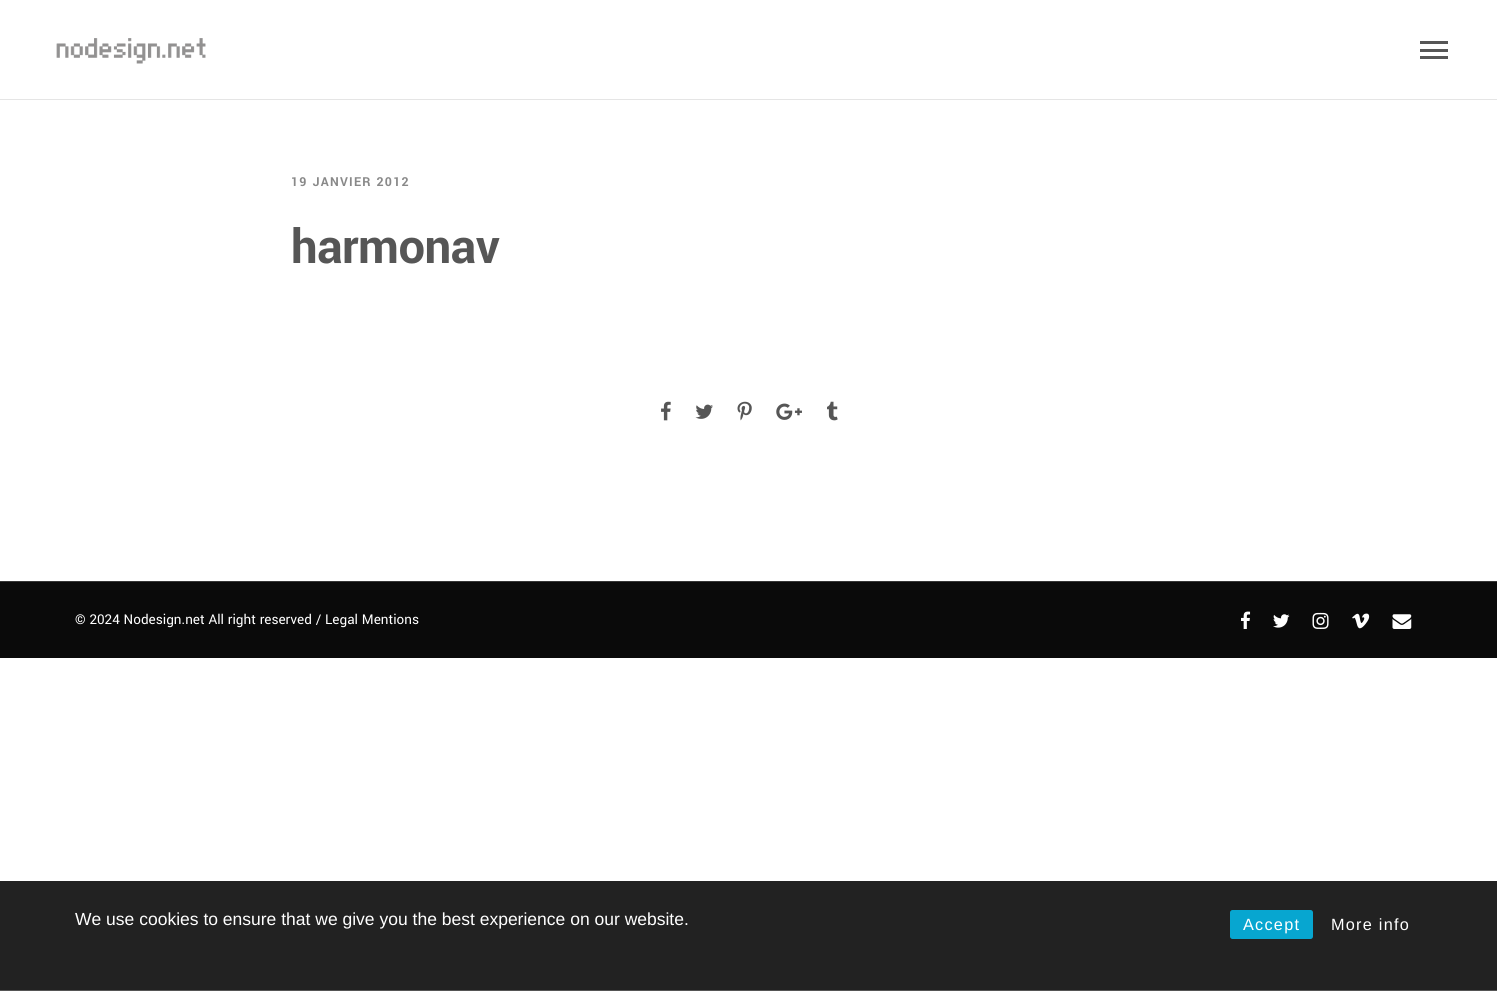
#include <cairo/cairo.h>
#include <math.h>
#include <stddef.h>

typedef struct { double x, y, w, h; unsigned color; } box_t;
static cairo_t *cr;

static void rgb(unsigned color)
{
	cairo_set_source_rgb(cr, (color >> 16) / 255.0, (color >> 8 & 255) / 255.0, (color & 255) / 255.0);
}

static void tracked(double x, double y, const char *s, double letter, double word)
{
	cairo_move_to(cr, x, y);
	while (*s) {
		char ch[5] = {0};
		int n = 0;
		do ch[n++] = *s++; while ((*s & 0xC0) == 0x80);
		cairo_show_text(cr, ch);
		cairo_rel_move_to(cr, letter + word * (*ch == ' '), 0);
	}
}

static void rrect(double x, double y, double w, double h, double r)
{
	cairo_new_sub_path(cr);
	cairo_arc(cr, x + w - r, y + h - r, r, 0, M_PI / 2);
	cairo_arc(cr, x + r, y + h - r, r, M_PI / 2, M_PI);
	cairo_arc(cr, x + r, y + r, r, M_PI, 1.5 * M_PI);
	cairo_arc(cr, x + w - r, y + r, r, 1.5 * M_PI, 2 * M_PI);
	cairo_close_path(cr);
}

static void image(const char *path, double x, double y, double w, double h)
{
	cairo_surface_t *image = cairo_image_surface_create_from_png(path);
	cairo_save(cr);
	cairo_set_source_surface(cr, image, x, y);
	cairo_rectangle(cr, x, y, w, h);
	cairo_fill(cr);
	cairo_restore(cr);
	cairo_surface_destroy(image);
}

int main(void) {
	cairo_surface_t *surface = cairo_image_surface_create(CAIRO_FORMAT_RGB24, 1497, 991);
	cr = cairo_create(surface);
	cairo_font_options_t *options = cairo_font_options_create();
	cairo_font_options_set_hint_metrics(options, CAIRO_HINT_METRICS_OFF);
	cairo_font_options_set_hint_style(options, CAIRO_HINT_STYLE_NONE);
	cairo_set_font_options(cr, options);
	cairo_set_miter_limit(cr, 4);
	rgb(0xffffff);
	cairo_paint(cr);
	rgb(0xe5e5e5);
	cairo_rectangle(cr, 0, 99, 1497, 1);
	cairo_fill(cr);
	image("img/1.png", 56, 38, 150, 26);
	{
		static const box_t items[] = {
			{1420, 49, 28, 3, 0x565656},
			{1420, 41, 28, 3, 0x565656},
			{1420, 56, 28, 3, 0x565656},
		};
		for (size_t i = 0; i < sizeof items / sizeof *items; i++) {
			rgb(items[i].color);
			cairo_rectangle(cr, items[i].x, items[i].y, items[i].w, items[i].h);
			cairo_fill(cr);
		}
	}
	image("img/2.png", 661, 401, 10, 20);
	image("img/3.png", 695, 404, 18, 15);
	image("img/4.png", 737, 401, 15, 20);
	image("img/5.png", 776, 403, 26, 17);
	image("img/6.png", 827, 401, 11, 20);
	rgb(0x0a0a0a);
	cairo_rectangle(cr, 0, 582, 1497, 76);
	cairo_fill(cr);
	rgb(0x363636);
	cairo_rectangle(cr, 0, 581, 1497, 1);
	cairo_fill(cr);
	image("img/7.png", 1241, 611, 10, 18);
	image("img/8.png", 1273, 614, 17, 14);
	image("img/9.png", 1312, 612, 17, 17);
	image("img/10.png", 1352, 613, 18, 16);
	image("img/11.png", 1392, 614, 20, 15);
	rgb(0x222222);
	cairo_rectangle(cr, 0, 881, 1497, 109);
	cairo_fill(cr);
	rgb(0x555555);
	cairo_rectangle(cr, 0, 990, 1497, 1);
	cairo_fill(cr);
	rgb(0x07a6d0);
	rrect(1230, 910, 83, 29, 2.5);
	cairo_fill(cr);
	cairo_select_font_face(cr, "Yantramanav", CAIRO_FONT_SLANT_NORMAL, CAIRO_FONT_WEIGHT_BOLD);
	cairo_set_font_size(cr, 13.75);
	rgb(0x898989);
	tracked(291, 186, "19 JANVIER 2012", 1.25, 0);
	cairo_set_font_size(cr, 52.5);
	rgb(0x565656);
	tracked(291, 263, "harmonav", -0.5, 0);
	cairo_select_font_face(cr, "Yantramanav", CAIRO_FONT_SLANT_NORMAL, CAIRO_FONT_WEIGHT_NORMAL);
	cairo_set_font_size(cr, 15);
	rgb(0xffffff);
	cairo_move_to(cr, 75, 624);
	cairo_show_text(cr, "© 2024 Nodesign.net All right reserved / Legal Mentions");
	cairo_select_font_face(cr, "Liberation Sans", CAIRO_FONT_SLANT_NORMAL, CAIRO_FONT_WEIGHT_NORMAL);
	cairo_set_font_size(cr, 17.5);
	cairo_move_to(cr, 75, 925);
	cairo_show_text(cr, "We use cookies to ensure that we give you the best experience on our website.");
	cairo_set_font_size(cr, 16.25);
	tracked(1243, 930, "Accept", 1.25, 0);
	tracked(1331, 930, "More info", 1.25, 0);
	cairo_surface_write_to_png(surface, "page.png");
	cairo_font_options_destroy(options);
	cairo_destroy(cr);
	cairo_surface_destroy(surface);
	return 0;
}
